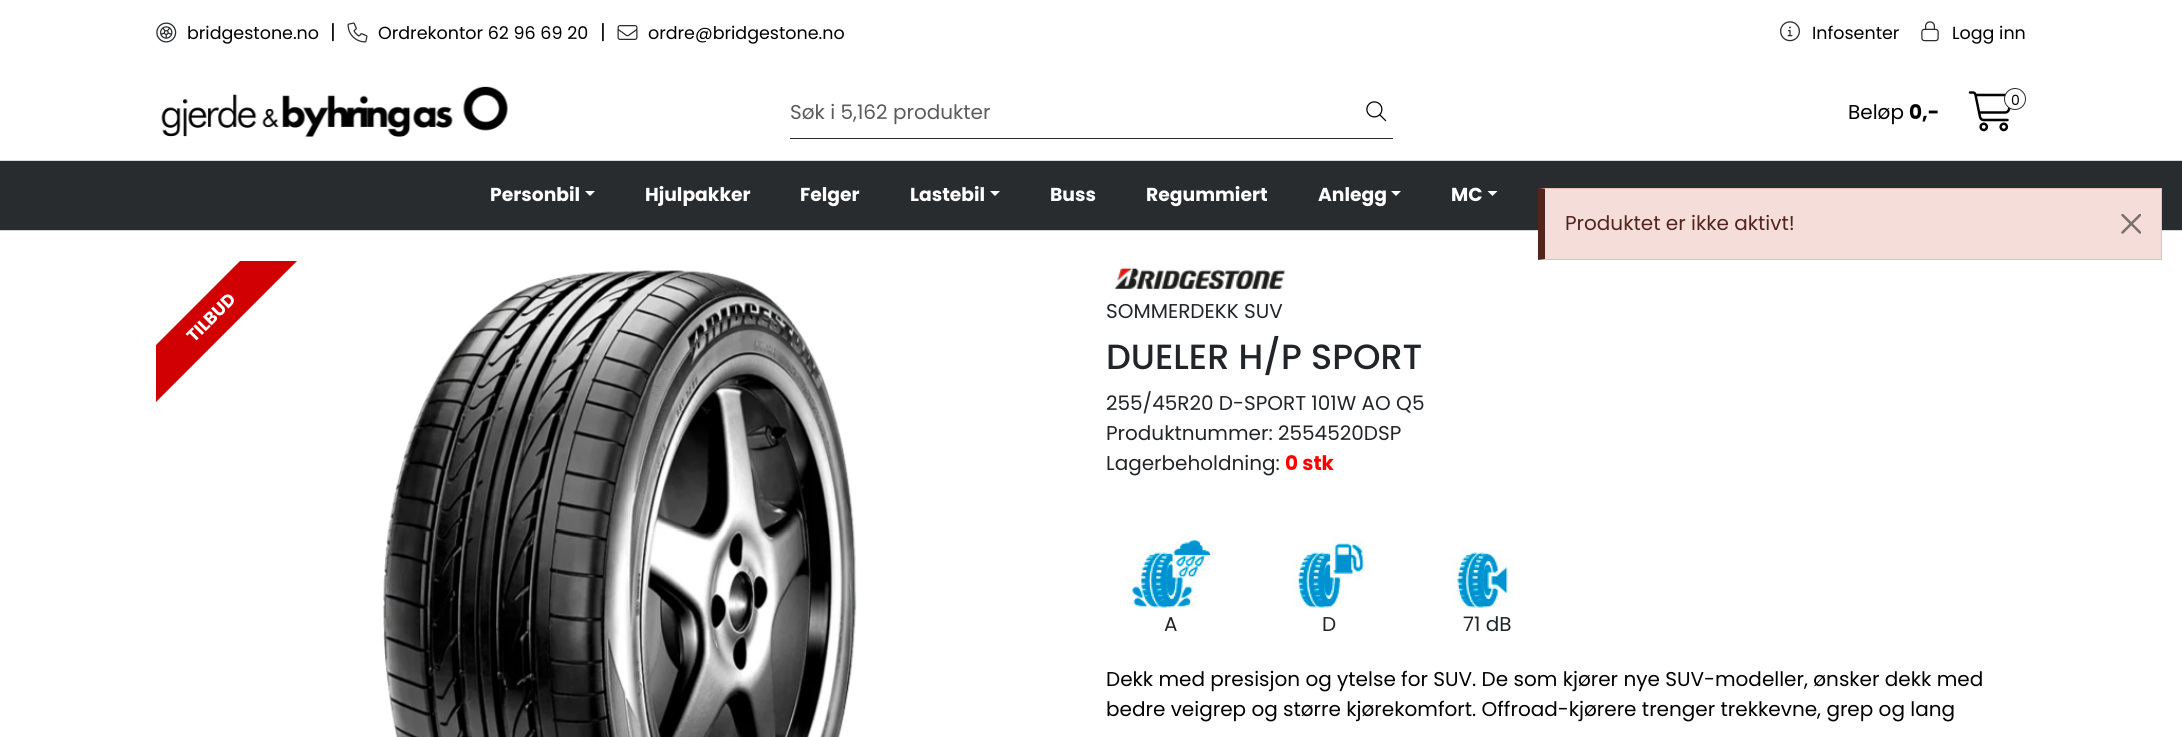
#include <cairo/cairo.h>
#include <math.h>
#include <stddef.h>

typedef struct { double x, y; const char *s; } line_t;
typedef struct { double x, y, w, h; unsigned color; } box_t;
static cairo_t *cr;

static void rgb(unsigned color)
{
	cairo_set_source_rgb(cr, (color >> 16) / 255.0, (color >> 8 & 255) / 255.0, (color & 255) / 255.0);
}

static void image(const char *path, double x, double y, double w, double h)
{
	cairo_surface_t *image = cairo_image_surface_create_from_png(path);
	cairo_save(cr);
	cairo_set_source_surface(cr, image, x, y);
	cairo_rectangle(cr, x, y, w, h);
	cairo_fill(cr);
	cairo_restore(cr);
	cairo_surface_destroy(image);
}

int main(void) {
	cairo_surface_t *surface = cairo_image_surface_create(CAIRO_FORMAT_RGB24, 2182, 737);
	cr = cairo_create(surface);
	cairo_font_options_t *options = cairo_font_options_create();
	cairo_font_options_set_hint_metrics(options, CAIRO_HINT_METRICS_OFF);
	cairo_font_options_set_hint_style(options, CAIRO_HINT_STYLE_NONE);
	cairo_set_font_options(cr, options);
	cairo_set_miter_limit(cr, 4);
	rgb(0xffffff);
	cairo_paint(cr);
	image("img/1.png", 156, 22, 21, 21);
	image("img/2.png", 347, 22, 21, 21);
	image("img/3.png", 617, 25, 21, 15);
	image("img/4.png", 1780, 21, 20, 21);
	image("img/5.png", 1921, 21, 18, 21);
	image("img/6.png", 161, 86, 347, 51);
	rgb(0x292c2f);
	cairo_rectangle(cr, 790, 138, 603, 1);
	cairo_fill(cr);
	image("img/7.png", 1366, 101, 21, 21);
	image("img/8.png", 1968, 91, 43, 41);
	rgb(0xffffff);
	cairo_arc(cr, 2015, 99, 10.5, 0, 2 * M_PI);
	cairo_fill_preserve(cr);
	rgb(0x292c2f);
	cairo_set_line_width(cr, 1);
	cairo_stroke(cr);
	{
		static const box_t items[] = {
			{0, 161, 2182, 69, 0x292c2f},
			{0, 160, 2182, 1, 0xd6d8dd},
			{0, 230, 2182, 1, 0xd6d8dd},
		};
		for (size_t i = 0; i < sizeof items / sizeof *items; i++) {
			rgb(items[i].color);
			cairo_rectangle(cr, items[i].x, items[i].y, items[i].w, items[i].h);
			cairo_fill(cr);
		}
	}
	rgb(0xffffff);
	cairo_new_path(cr);
	cairo_move_to(cr, 585, 191);
	cairo_line_to(cr, 595, 191);
	cairo_line_to(cr, 590, 196);
	cairo_close_path(cr);
	cairo_fill(cr);
	cairo_new_path(cr);
	cairo_move_to(cr, 990, 191);
	cairo_line_to(cr, 1000, 191);
	cairo_line_to(cr, 995, 196);
	cairo_close_path(cr);
	cairo_fill(cr);
	cairo_new_path(cr);
	cairo_move_to(cr, 1391, 191);
	cairo_line_to(cr, 1401, 191);
	cairo_line_to(cr, 1396, 196);
	cairo_close_path(cr);
	cairo_fill(cr);
	cairo_new_path(cr);
	cairo_move_to(cr, 1487.5, 191);
	cairo_line_to(cr, 1497.5, 191);
	cairo_line_to(cr, 1492.5, 196);
	cairo_close_path(cr);
	cairo_fill(cr);
	rgb(0xf5deda);
	cairo_rectangle(cr, 1545, 189, 616, 70);
	cairo_fill(cr);
	rgb(0xebbdb5);
	cairo_new_path(cr);
	cairo_move_to(cr, 1538, 188);
	cairo_line_to(cr, 2162, 188);
	cairo_line_to(cr, 2161, 189);
	cairo_line_to(cr, 1545, 189);
	cairo_close_path(cr);
	cairo_fill(cr);
	cairo_rectangle(cr, 2161, 188, 1, 72);
	cairo_fill(cr);
	cairo_new_path(cr);
	cairo_move_to(cr, 2162, 260);
	cairo_line_to(cr, 1538, 260);
	cairo_line_to(cr, 1545, 259);
	cairo_line_to(cr, 2161, 259);
	cairo_close_path(cr);
	cairo_fill(cr);
	rgb(0x52241c);
	cairo_new_path(cr);
	cairo_move_to(cr, 1538, 260);
	cairo_line_to(cr, 1538, 188);
	cairo_line_to(cr, 1545, 189);
	cairo_line_to(cr, 1545, 259);
	cairo_close_path(cr);
	cairo_fill(cr);
	image("img/9.png", 2121, 214, 20, 20);
	cairo_save(cr);
	cairo_rectangle(cr, 156, 261, 225, 225);
	cairo_clip(cr);
	rgb(0xd10003);
	cairo_new_path(cr);
	cairo_move_to(cr, 118, 383);
	cairo_line_to(cr, 277, 224);
	cairo_line_to(cr, 305, 253);
	cairo_line_to(cr, 146, 412);
	cairo_close_path(cr);
	cairo_fill(cr);
	cairo_restore(cr);
	image("img/10.png", 383, 270, 474, 467);
	image("img/11.png", 1114, 267, 172, 23);
	image("img/12.png", 1126, 539, 89, 70);
	image("img/13.png", 1294, 539, 70, 70);
	image("img/14.png", 1452, 549, 61, 60);
	cairo_select_font_face(cr, "Poppins", CAIRO_FONT_SLANT_NORMAL, CAIRO_FONT_WEIGHT_NORMAL);
	cairo_set_font_size(cr, 17.5);
	rgb(0x000000);
	cairo_move_to(cr, 187, 39);
	cairo_show_text(cr, "bridgestone.no");
	cairo_set_font_size(cr, 20);
	rgb(0x111111);
	cairo_move_to(cr, 330, 39);
	cairo_show_text(cr, "|");
	cairo_set_font_size(cr, 17.5);
	rgb(0x000000);
	cairo_move_to(cr, 378, 39);
	cairo_show_text(cr, "Ordrekontor 62 96 69 20");
	cairo_set_font_size(cr, 20);
	rgb(0x111111);
	cairo_move_to(cr, 600, 39);
	cairo_show_text(cr, "|");
	cairo_set_font_size(cr, 17.5);
	rgb(0x000000);
	{
		static const line_t items[] = {
			{648, 39, "ordre@bridgestone.no"},
			{1812, 39, "Infosenter"},
			{1952, 39, "Logg inn"},
		};
		for (size_t i = 0; i < sizeof items / sizeof *items; i++) {
			cairo_move_to(cr, items[i].x, items[i].y);
			cairo_show_text(cr, items[i].s);
		}
	}
	cairo_set_font_size(cr, 20);
	rgb(0x595c5f);
	cairo_move_to(cr, 790, 119);
	cairo_show_text(cr, "Søk i 5,162 produkter");
	cairo_set_font_size(cr, 14);
	rgb(0x000000);
	cairo_move_to(cr, 2011, 105);
	cairo_show_text(cr, "0");
	cairo_set_font_size(cr, 20);
	cairo_move_to(cr, 1848, 119);
	cairo_show_text(cr, "Beløp");
	cairo_select_font_face(cr, "Poppins", CAIRO_FONT_SLANT_NORMAL, CAIRO_FONT_WEIGHT_BOLD);
	cairo_move_to(cr, 1909, 119);
	cairo_show_text(cr, "0,-");
	cairo_set_font_size(cr, 18.75);
	rgb(0xffffff);
	{
		static const line_t items[] = {
			{490, 201, "Personbil"},
			{645, 201, "Hjulpakker"},
			{800, 201, "Felger"},
			{910, 201, "Lastebil"},
			{1050, 201, "Buss"},
			{1146, 201, "Regummiert"},
			{1318, 201, "Anlegg"},
			{1451, 201, "MC"},
		};
		for (size_t i = 0; i < sizeof items / sizeof *items; i++) {
			cairo_move_to(cr, items[i].x, items[i].y);
			cairo_show_text(cr, items[i].s);
		}
	}
	cairo_select_font_face(cr, "Poppins", CAIRO_FONT_SLANT_NORMAL, CAIRO_FONT_WEIGHT_NORMAL);
	cairo_set_font_size(cr, 20);
	rgb(0x52241c);
	cairo_move_to(cr, 1565, 230);
	cairo_show_text(cr, "Produktet er ikke aktivt!");
	cairo_select_font_face(cr, "Poppins", CAIRO_FONT_SLANT_NORMAL, CAIRO_FONT_WEIGHT_BOLD);
	cairo_set_font_size(cr, 17.5);
	rgb(0xffffff);
	cairo_save(cr);
	cairo_translate(cr, 194, 343);
	cairo_rotate(cr, -45 * M_PI / 180);
	cairo_move_to(cr, 0, 0);
	cairo_show_text(cr, "TILBUD");
	cairo_restore(cr);
	cairo_select_font_face(cr, "Poppins", CAIRO_FONT_SLANT_NORMAL, CAIRO_FONT_WEIGHT_NORMAL);
	cairo_set_font_size(cr, 20);
	rgb(0x212529);
	cairo_move_to(cr, 1106, 318);
	cairo_show_text(cr, "SOMMERDEKK SUV");
	cairo_select_font_face(cr, "Poppins Medium", CAIRO_FONT_SLANT_NORMAL, CAIRO_FONT_WEIGHT_NORMAL);
	cairo_set_font_size(cr, 35);
	cairo_move_to(cr, 1106, 369);
	cairo_show_text(cr, "DUELER H/P SPORT");
	cairo_select_font_face(cr, "Poppins", CAIRO_FONT_SLANT_NORMAL, CAIRO_FONT_WEIGHT_NORMAL);
	cairo_set_font_size(cr, 20);
	{
		static const line_t items[] = {
			{1106, 410, "255/45R20 D-SPORT 101W AO Q5"},
			{1106, 440, "Produktnummer: 2554520DSP"},
			{1106, 470, "Lagerbeholdning:"},
		};
		for (size_t i = 0; i < sizeof items / sizeof *items; i++) {
			cairo_move_to(cr, items[i].x, items[i].y);
			cairo_show_text(cr, items[i].s);
		}
	}
	cairo_select_font_face(cr, "Poppins", CAIRO_FONT_SLANT_NORMAL, CAIRO_FONT_WEIGHT_BOLD);
	rgb(0xff0000);
	cairo_move_to(cr, 1285, 470);
	cairo_show_text(cr, "0 stk");
	cairo_select_font_face(cr, "Poppins", CAIRO_FONT_SLANT_NORMAL, CAIRO_FONT_WEIGHT_NORMAL);
	rgb(0x212529);
	{
		static const line_t items[] = {
			{1164, 631, "A"},
			{1322, 631, "D"},
			{1463, 631, "71 dB"},
		};
		for (size_t i = 0; i < sizeof items / sizeof *items; i++) {
			cairo_move_to(cr, items[i].x, items[i].y);
			cairo_show_text(cr, items[i].s);
		}
	}
	rgb(0x000000);
	cairo_move_to(cr, 1106, 686);
	cairo_show_text(cr, "Dekk med presisjon og ytelse for SUV. De som kjører nye SUV-modeller, ønsker dekk med");
	cairo_move_to(cr, 1106, 716);
	cairo_show_text(cr, "bedre veigrep og større kjørekomfort. Offroad-kjørere trenger trekkevne, grep og lang");
	cairo_surface_write_to_png(surface, "page.png");
	cairo_font_options_destroy(options);
	cairo_destroy(cr);
	cairo_surface_destroy(surface);
	return 0;
}
